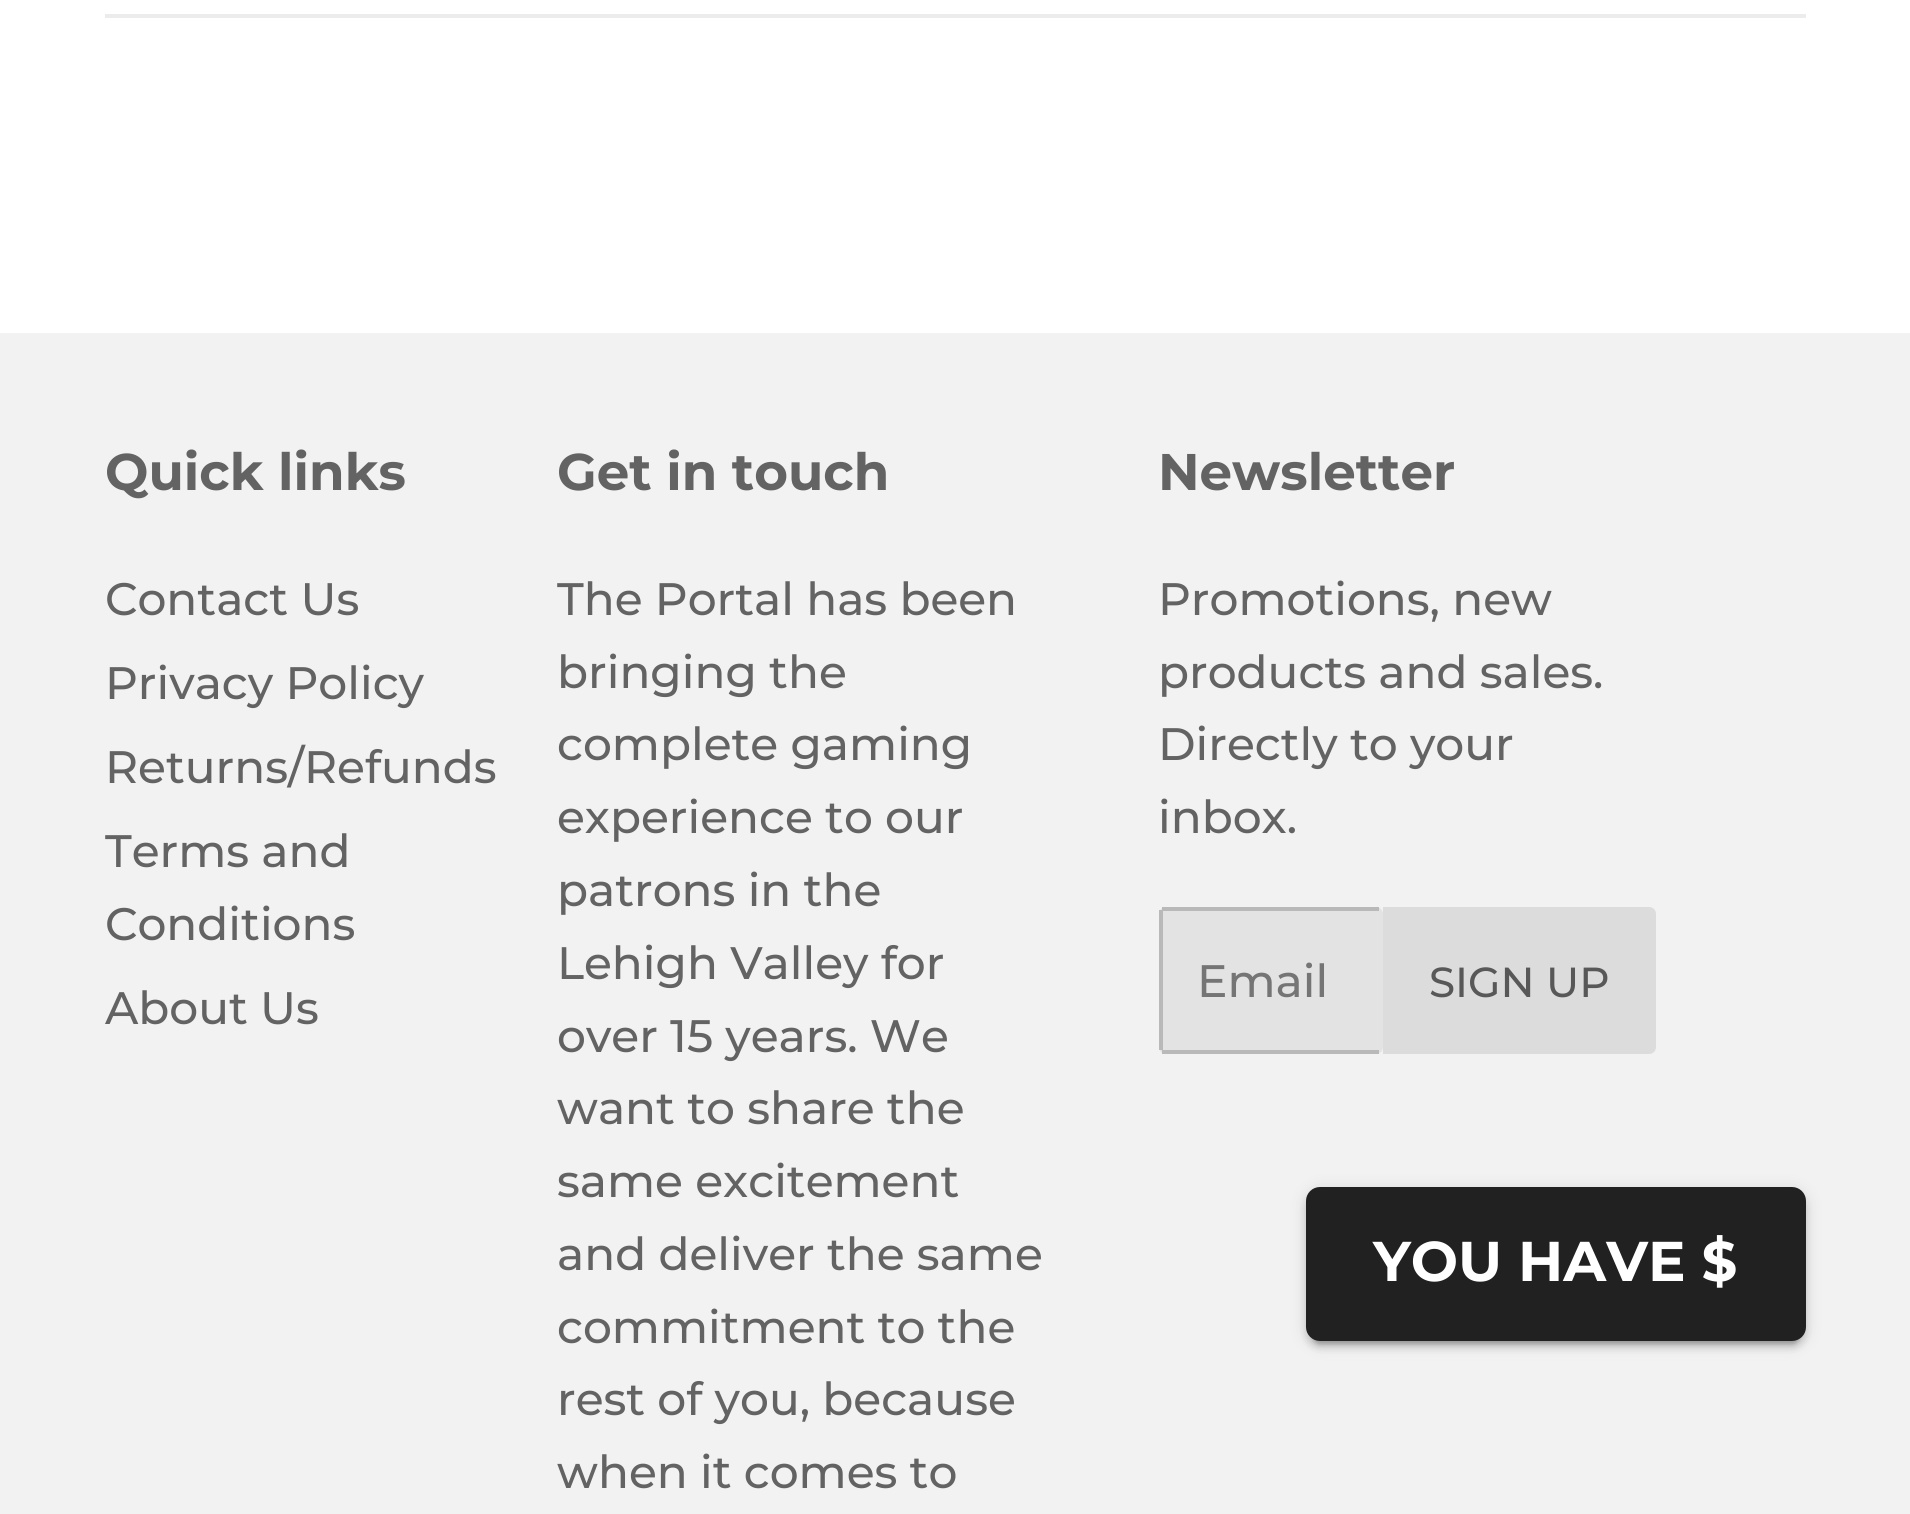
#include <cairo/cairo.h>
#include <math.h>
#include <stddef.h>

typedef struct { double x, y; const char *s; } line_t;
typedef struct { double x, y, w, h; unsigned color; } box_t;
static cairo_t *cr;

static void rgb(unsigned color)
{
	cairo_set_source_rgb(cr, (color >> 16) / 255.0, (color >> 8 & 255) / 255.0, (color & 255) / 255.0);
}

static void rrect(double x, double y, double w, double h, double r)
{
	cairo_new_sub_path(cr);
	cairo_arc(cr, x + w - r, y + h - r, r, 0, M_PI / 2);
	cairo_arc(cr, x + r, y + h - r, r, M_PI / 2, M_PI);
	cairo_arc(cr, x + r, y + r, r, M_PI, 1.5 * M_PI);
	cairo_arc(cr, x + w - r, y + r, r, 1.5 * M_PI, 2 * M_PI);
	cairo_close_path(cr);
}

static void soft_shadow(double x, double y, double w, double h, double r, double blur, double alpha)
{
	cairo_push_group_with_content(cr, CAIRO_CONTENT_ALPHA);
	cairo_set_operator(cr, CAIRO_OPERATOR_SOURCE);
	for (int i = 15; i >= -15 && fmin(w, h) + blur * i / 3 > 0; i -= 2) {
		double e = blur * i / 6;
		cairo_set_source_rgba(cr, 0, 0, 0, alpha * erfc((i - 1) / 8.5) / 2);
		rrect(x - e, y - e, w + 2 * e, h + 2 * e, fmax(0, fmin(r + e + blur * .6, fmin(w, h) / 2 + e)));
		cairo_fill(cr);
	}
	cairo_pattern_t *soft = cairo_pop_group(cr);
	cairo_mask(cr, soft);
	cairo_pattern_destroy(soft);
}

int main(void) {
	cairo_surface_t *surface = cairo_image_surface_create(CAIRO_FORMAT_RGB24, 1910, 1514);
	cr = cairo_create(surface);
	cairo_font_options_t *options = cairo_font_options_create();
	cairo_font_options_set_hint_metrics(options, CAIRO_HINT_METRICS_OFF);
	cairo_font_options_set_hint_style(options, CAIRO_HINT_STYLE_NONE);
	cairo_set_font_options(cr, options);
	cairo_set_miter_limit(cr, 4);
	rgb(0xffffff);
	cairo_paint(cr);
	rgb(0xececec);
	cairo_rectangle(cr, 105, 14, 1701, 4);
	cairo_fill(cr);
	rgb(0xf2f2f2);
	cairo_rectangle(cr, 0, 333, 1910, 1181);
	cairo_fill(cr);
	rgb(0xe3e3e3);
	rrect(1159, 907, 224, 147, 7);
	cairo_fill(cr);
	{
		static const box_t items[] = {
			{1162, 907, 217, 4, 0xb9b9b9},
			{1162, 1050, 217, 4, 0xb9b9b9},
			{1159, 910, 4, 140, 0xb9b9b9},
		};
		for (size_t i = 0; i < sizeof items / sizeof *items; i++) {
			rgb(items[i].color);
			cairo_rectangle(cr, items[i].x, items[i].y, items[i].w, items[i].h);
			cairo_fill(cr);
		}
	}
	rgb(0xdcdcdc);
	cairo_new_path(cr);
	cairo_move_to(cr, 1383, 907);
	cairo_line_to(cr, 1649, 907);
	cairo_curve_to(cr, 1653, 907, 1656, 910, 1656, 914);
	cairo_line_to(cr, 1656, 1047);
	cairo_curve_to(cr, 1656, 1051, 1653, 1054, 1649, 1054);
	cairo_line_to(cr, 1383, 1054);
	cairo_close_path(cr);
	cairo_fill(cr);
	rgb(0x000000);
	soft_shadow(1306, 1190, 500, 154, 14, 9, 0.12);
	soft_shadow(1306, 1194, 500, 154, 14, 3.5, 0.14);
	soft_shadow(1313, 1204, 486, 140, 7, 2, 0.2);
	rgb(0x212121);
	rrect(1306, 1187, 500, 154, 14);
	cairo_fill(cr);
	cairo_select_font_face(cr, "Montserrat", CAIRO_FONT_SLANT_NORMAL, CAIRO_FONT_WEIGHT_BOLD);
	cairo_set_font_size(cr, 51.5);
	rgb(0x636363);
	cairo_move_to(cr, 105, 490);
	cairo_show_text(cr, "Quick links");
	cairo_select_font_face(cr, "Montserrat Medium", CAIRO_FONT_SLANT_NORMAL, CAIRO_FONT_WEIGHT_NORMAL);
	cairo_set_font_size(cr, 45.5);
	{
		static const line_t items[] = {
			{105, 615, "Contact Us"},
			{105, 699, "Privacy Policy"},
			{105, 783, "Returns/Refunds"},
			{105, 867, "Terms and"},
			{105, 940, "Conditions"},
			{105, 1024, "About Us"},
		};
		for (size_t i = 0; i < sizeof items / sizeof *items; i++) {
			cairo_move_to(cr, items[i].x, items[i].y);
			cairo_show_text(cr, items[i].s);
		}
	}
	cairo_select_font_face(cr, "Montserrat", CAIRO_FONT_SLANT_NORMAL, CAIRO_FONT_WEIGHT_BOLD);
	cairo_set_font_size(cr, 51.5);
	cairo_move_to(cr, 557, 490);
	cairo_show_text(cr, "Get in touch");
	cairo_select_font_face(cr, "Montserrat Medium", CAIRO_FONT_SLANT_NORMAL, CAIRO_FONT_WEIGHT_NORMAL);
	cairo_set_font_size(cr, 45.5);
	{
		static const line_t items[] = {
			{557, 615, "The Portal has been"},
			{557, 688, "bringing the"},
			{557, 760, "complete gaming"},
			{557, 833, "experience to our"},
			{557, 906, "patrons in the"},
			{557, 979, "Lehigh Valley for"},
			{557, 1052, "over 15 years. We"},
			{557, 1124, "want to share the"},
			{557, 1197, "same excitement"},
			{557, 1270, "and deliver the same"},
			{557, 1343, "commitment to the"},
			{557, 1415, "rest of you, because"},
			{557, 1488, "when it comes to"},
		};
		for (size_t i = 0; i < sizeof items / sizeof *items; i++) {
			cairo_move_to(cr, items[i].x, items[i].y);
			cairo_show_text(cr, items[i].s);
		}
	}
	cairo_select_font_face(cr, "Montserrat", CAIRO_FONT_SLANT_NORMAL, CAIRO_FONT_WEIGHT_BOLD);
	cairo_set_font_size(cr, 51.5);
	cairo_move_to(cr, 1158, 490);
	cairo_show_text(cr, "Newsletter");
	cairo_select_font_face(cr, "Montserrat Medium", CAIRO_FONT_SLANT_NORMAL, CAIRO_FONT_WEIGHT_NORMAL);
	cairo_set_font_size(cr, 45.5);
	{
		static const line_t items[] = {
			{1158, 615, "Promotions, new"},
			{1158, 688, "products and sales."},
			{1158, 760, "Directly to your"},
			{1158, 833, "inbox."},
		};
		for (size_t i = 0; i < sizeof items / sizeof *items; i++) {
			cairo_move_to(cr, items[i].x, items[i].y);
			cairo_show_text(cr, items[i].s);
		}
	}
	rgb(0x757575);
	cairo_move_to(cr, 1197, 997);
	cairo_show_text(cr, "Email");
	cairo_set_font_size(cr, 42);
	rgb(0x585858);
	cairo_move_to(cr, 1429, 997);
	cairo_show_text(cr, "SIGN UP");
	cairo_select_font_face(cr, "Montserrat", CAIRO_FONT_SLANT_NORMAL, CAIRO_FONT_WEIGHT_BOLD);
	cairo_set_font_size(cr, 56);
	rgb(0xffffff);
	cairo_move_to(cr, 1373, 1281);
	cairo_show_text(cr, "YOU HAVE $");
	cairo_surface_write_to_png(surface, "page.png");
	cairo_font_options_destroy(options);
	cairo_destroy(cr);
	cairo_surface_destroy(surface);
	return 0;
}
